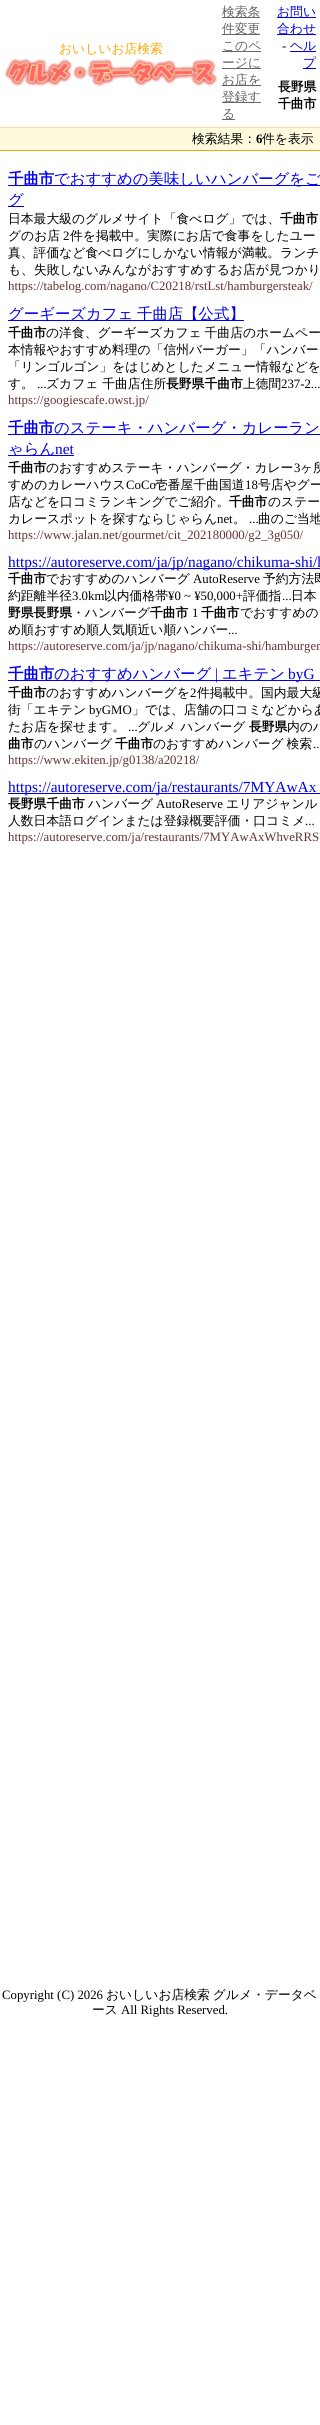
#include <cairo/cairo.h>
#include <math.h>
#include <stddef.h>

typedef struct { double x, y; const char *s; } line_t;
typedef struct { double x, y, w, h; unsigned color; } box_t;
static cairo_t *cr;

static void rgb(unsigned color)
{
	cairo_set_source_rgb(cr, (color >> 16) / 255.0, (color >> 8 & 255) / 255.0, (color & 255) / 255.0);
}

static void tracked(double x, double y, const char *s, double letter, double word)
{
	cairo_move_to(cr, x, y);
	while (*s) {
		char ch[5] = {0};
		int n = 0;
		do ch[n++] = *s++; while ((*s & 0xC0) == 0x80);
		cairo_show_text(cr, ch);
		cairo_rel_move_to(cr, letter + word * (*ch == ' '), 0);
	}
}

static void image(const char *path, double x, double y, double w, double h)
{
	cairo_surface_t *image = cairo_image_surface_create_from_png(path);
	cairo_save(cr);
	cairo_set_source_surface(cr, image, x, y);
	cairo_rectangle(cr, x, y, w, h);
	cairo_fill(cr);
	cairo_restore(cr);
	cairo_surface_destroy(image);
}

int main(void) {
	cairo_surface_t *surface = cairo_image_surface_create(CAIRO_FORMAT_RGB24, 320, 2425);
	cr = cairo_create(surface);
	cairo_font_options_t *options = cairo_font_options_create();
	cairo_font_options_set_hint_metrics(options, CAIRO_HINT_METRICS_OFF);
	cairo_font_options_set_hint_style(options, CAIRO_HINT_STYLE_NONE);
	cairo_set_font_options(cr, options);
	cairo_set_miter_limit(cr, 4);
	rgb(0xffffff);
	cairo_paint(cr);
	image("img/1.png", 4, 58, 214, 29);
	{
		static const box_t items[] = {
			{222, 17, 38, 1, 0x666666},
			{222, 34, 38, 1, 0x666666},
			{222, 51, 39, 1, 0x666666},
			{222, 68, 39, 1, 0x666666},
			{222, 85, 39, 1, 0x666666},
			{222, 102, 39, 1, 0x666666},
			{222, 119, 13, 1, 0x666666},
			{277, 17, 39, 1, 0x0000ee},
			{277, 34, 39, 1, 0x0000ee},
			{290, 51, 26, 1, 0x0000ee},
			{303, 68, 13, 1, 0x0000ee},
			{0, 128, 320, 22, 0xfefade},
			{0, 127, 320, 1, 0xf5deb3},
			{0, 150, 320, 1, 0xddad08},
			{8, 185, 312, 1, 0x0000ee},
			{8, 206, 16, 1, 0x0000ee},
			{8, 320, 236, 1, 0x0000ee},
			{8, 434, 312, 1, 0x0000ee},
			{8, 455, 66, 1, 0x0000ee},
			{8, 568, 312, 1, 0x0000ee},
			{8, 680, 312, 1, 0x0000ee},
			{8, 793, 312, 1, 0x0000ee},
		};
		for (size_t i = 0; i < sizeof items / sizeof *items; i++) {
			rgb(items[i].color);
			cairo_rectangle(cr, items[i].x, items[i].y, items[i].w, items[i].h);
			cairo_fill(cr);
		}
	}
	cairo_select_font_face(cr, "WenQuanYi Zen Hei Medium", CAIRO_FONT_SLANT_NORMAL, CAIRO_FONT_WEIGHT_NORMAL);
	cairo_set_font_size(cr, 12.8);
	rgb(0xffa500);
	cairo_move_to(cr, 59, 53);
	cairo_show_text(cr, "おいしいお店検索");
	rgb(0x666666);
	{
		static const line_t items[] = {
			{222, 16, "検索条"},
			{222, 33, "件変更"},
			{222, 50, "このペ"},
			{222, 67, "ージに"},
			{222, 84, "お店を"},
			{222, 101, "登録す"},
			{222, 118, "る"},
		};
		for (size_t i = 0; i < sizeof items / sizeof *items; i++) {
			cairo_move_to(cr, items[i].x, items[i].y);
			cairo_show_text(cr, items[i].s);
		}
	}
	rgb(0x0000ee);
	cairo_move_to(cr, 277, 16);
	cairo_show_text(cr, "お問い");
	cairo_move_to(cr, 277, 33);
	cairo_show_text(cr, "合わせ");
	cairo_select_font_face(cr, "Liberation Serif", CAIRO_FONT_SLANT_NORMAL, CAIRO_FONT_WEIGHT_NORMAL);
	rgb(0x000000);
	cairo_move_to(cr, 282, 50);
	cairo_show_text(cr, "-");
	cairo_select_font_face(cr, "WenQuanYi Zen Hei Medium", CAIRO_FONT_SLANT_NORMAL, CAIRO_FONT_WEIGHT_NORMAL);
	rgb(0x0000ee);
	cairo_move_to(cr, 290, 50);
	cairo_show_text(cr, "ヘル");
	cairo_move_to(cr, 303, 67);
	cairo_show_text(cr, "プ");
	cairo_select_font_face(cr, "WenQuanYi Zen Hei", CAIRO_FONT_SLANT_NORMAL, CAIRO_FONT_WEIGHT_BOLD);
	rgb(0x000000);
	cairo_move_to(cr, 278, 91);
	cairo_show_text(cr, "長野県");
	cairo_move_to(cr, 278, 108);
	cairo_show_text(cr, "千曲市");
	cairo_select_font_face(cr, "WenQuanYi Zen Hei Medium", CAIRO_FONT_SLANT_NORMAL, CAIRO_FONT_WEIGHT_NORMAL);
	cairo_move_to(cr, 192, 143);
	cairo_show_text(cr, "検索結果：");
	cairo_select_font_face(cr, "Liberation Serif", CAIRO_FONT_SLANT_NORMAL, CAIRO_FONT_WEIGHT_BOLD);
	cairo_move_to(cr, 256, 143);
	cairo_show_text(cr, "6");
	cairo_select_font_face(cr, "WenQuanYi Zen Hei Medium", CAIRO_FONT_SLANT_NORMAL, CAIRO_FONT_WEIGHT_NORMAL);
	cairo_move_to(cr, 262, 143);
	cairo_show_text(cr, "件を表示");
	cairo_select_font_face(cr, "WenQuanYi Zen Hei", CAIRO_FONT_SLANT_NORMAL, CAIRO_FONT_WEIGHT_BOLD);
	cairo_set_font_size(cr, 15.4);
	rgb(0x0000ee);
	cairo_move_to(cr, 8, 184);
	cairo_show_text(cr, "千曲市");
	cairo_select_font_face(cr, "WenQuanYi Zen Hei Medium", CAIRO_FONT_SLANT_NORMAL, CAIRO_FONT_WEIGHT_NORMAL);
	cairo_move_to(cr, 54, 184);
	cairo_show_text(cr, "でおすすめの美味しいハンバーグをご");
	cairo_move_to(cr, 8, 205);
	cairo_show_text(cr, "グ");
	cairo_set_font_size(cr, 12.8);
	rgb(0x000000);
	cairo_move_to(cr, 8, 223);
	cairo_show_text(cr, "日本最大級のグルメサイト「食べログ」では、");
	cairo_select_font_face(cr, "WenQuanYi Zen Hei", CAIRO_FONT_SLANT_NORMAL, CAIRO_FONT_WEIGHT_BOLD);
	cairo_move_to(cr, 280, 223);
	cairo_show_text(cr, "千曲市");
	cairo_select_font_face(cr, "WenQuanYi Zen Hei Medium", CAIRO_FONT_SLANT_NORMAL, CAIRO_FONT_WEIGHT_NORMAL);
	cairo_move_to(cr, 8, 240);
	cairo_show_text(cr, "グのお店");
	cairo_select_font_face(cr, "Liberation Serif", CAIRO_FONT_SLANT_NORMAL, CAIRO_FONT_WEIGHT_NORMAL);
	cairo_move_to(cr, 63, 240);
	cairo_show_text(cr, "2");
	cairo_select_font_face(cr, "WenQuanYi Zen Hei Medium", CAIRO_FONT_SLANT_NORMAL, CAIRO_FONT_WEIGHT_NORMAL);
	{
		static const line_t items[] = {
			{70, 240, "件を掲載中。実際にお店で食事をしたユー"},
			{8, 257, "真、評価など食べログにしかない情報が満載。ランチ"},
			{8, 274, "も、失敗しないみんながおすすめするお店が見つかり"},
		};
		for (size_t i = 0; i < sizeof items / sizeof *items; i++) {
			cairo_move_to(cr, items[i].x, items[i].y);
			cairo_show_text(cr, items[i].s);
		}
	}
	cairo_select_font_face(cr, "Liberation Serif", CAIRO_FONT_SLANT_NORMAL, CAIRO_FONT_WEIGHT_NORMAL);
	rgb(0x663333);
	cairo_move_to(cr, 8, 290);
	cairo_show_text(cr, "https://tabelog.com/nagano/C20218/rstLst/hamburgersteak/");
	cairo_select_font_face(cr, "WenQuanYi Zen Hei Medium", CAIRO_FONT_SLANT_NORMAL, CAIRO_FONT_WEIGHT_NORMAL);
	cairo_set_font_size(cr, 15.4);
	rgb(0x0000ee);
	tracked(8, 319, "グーギーズカフェ 千曲店【公式】", 0, -1);
	cairo_select_font_face(cr, "WenQuanYi Zen Hei", CAIRO_FONT_SLANT_NORMAL, CAIRO_FONT_WEIGHT_BOLD);
	cairo_set_font_size(cr, 12.8);
	rgb(0x000000);
	cairo_move_to(cr, 8, 337);
	cairo_show_text(cr, "千曲市");
	cairo_select_font_face(cr, "WenQuanYi Zen Hei Medium", CAIRO_FONT_SLANT_NORMAL, CAIRO_FONT_WEIGHT_NORMAL);
	tracked(46, 337, "の洋食、グーギーズカフェ 千曲店のホームペー", 0, -1);
	{
		static const line_t items[] = {
			{8, 354, "本情報やおすすめ料理の「信州バーガー」「ハンバー"},
			{8, 371, "「リンゴルゴン」をはじめとしたメニュー情報などを"},
			{8, 388, "す。"},
		};
		for (size_t i = 0; i < sizeof items / sizeof *items; i++) {
			cairo_move_to(cr, items[i].x, items[i].y);
			cairo_show_text(cr, items[i].s);
		}
	}
	cairo_select_font_face(cr, "Liberation Serif", CAIRO_FONT_SLANT_NORMAL, CAIRO_FONT_WEIGHT_NORMAL);
	cairo_move_to(cr, 37, 388);
	cairo_show_text(cr, "...");
	cairo_select_font_face(cr, "WenQuanYi Zen Hei Medium", CAIRO_FONT_SLANT_NORMAL, CAIRO_FONT_WEIGHT_NORMAL);
	cairo_move_to(cr, 46, 388);
	cairo_show_text(cr, "ズカフェ 千曲店住所");
	cairo_select_font_face(cr, "WenQuanYi Zen Hei", CAIRO_FONT_SLANT_NORMAL, CAIRO_FONT_WEIGHT_BOLD);
	cairo_move_to(cr, 166, 388);
	cairo_show_text(cr, "長野県千曲市");
	cairo_select_font_face(cr, "WenQuanYi Zen Hei Medium", CAIRO_FONT_SLANT_NORMAL, CAIRO_FONT_WEIGHT_NORMAL);
	cairo_move_to(cr, 243, 388);
	cairo_show_text(cr, "上徳間");
	cairo_select_font_face(cr, "Liberation Serif", CAIRO_FONT_SLANT_NORMAL, CAIRO_FONT_WEIGHT_NORMAL);
	cairo_move_to(cr, 281, 388);
	cairo_show_text(cr, "237-2...");
	rgb(0x663333);
	cairo_move_to(cr, 8, 404);
	cairo_show_text(cr, "https://googiescafe.owst.jp/");
	cairo_select_font_face(cr, "WenQuanYi Zen Hei", CAIRO_FONT_SLANT_NORMAL, CAIRO_FONT_WEIGHT_BOLD);
	cairo_set_font_size(cr, 15.4);
	rgb(0x0000ee);
	cairo_move_to(cr, 8, 433);
	cairo_show_text(cr, "千曲市");
	cairo_select_font_face(cr, "WenQuanYi Zen Hei Medium", CAIRO_FONT_SLANT_NORMAL, CAIRO_FONT_WEIGHT_NORMAL);
	cairo_move_to(cr, 54, 433);
	cairo_show_text(cr, "のステーキ・ハンバーグ・カレーラン");
	cairo_move_to(cr, 8, 454);
	cairo_show_text(cr, "ゃらん");
	cairo_select_font_face(cr, "Liberation Serif", CAIRO_FONT_SLANT_NORMAL, CAIRO_FONT_WEIGHT_NORMAL);
	cairo_move_to(cr, 55, 454);
	cairo_show_text(cr, "net");
	cairo_select_font_face(cr, "WenQuanYi Zen Hei", CAIRO_FONT_SLANT_NORMAL, CAIRO_FONT_WEIGHT_BOLD);
	cairo_set_font_size(cr, 12.8);
	rgb(0x000000);
	cairo_move_to(cr, 8, 472);
	cairo_show_text(cr, "千曲市");
	cairo_select_font_face(cr, "WenQuanYi Zen Hei Medium", CAIRO_FONT_SLANT_NORMAL, CAIRO_FONT_WEIGHT_NORMAL);
	cairo_move_to(cr, 46, 472);
	cairo_show_text(cr, "のおすすめステーキ・ハンバーグ・カレー");
	cairo_select_font_face(cr, "Liberation Serif", CAIRO_FONT_SLANT_NORMAL, CAIRO_FONT_WEIGHT_NORMAL);
	cairo_move_to(cr, 294, 472);
	cairo_show_text(cr, "3");
	cairo_select_font_face(cr, "WenQuanYi Zen Hei Medium", CAIRO_FONT_SLANT_NORMAL, CAIRO_FONT_WEIGHT_NORMAL);
	cairo_move_to(cr, 300, 472);
	cairo_show_text(cr, "ヶ所");
	cairo_move_to(cr, 8, 489);
	cairo_show_text(cr, "すめのカレーハウス");
	cairo_select_font_face(cr, "Liberation Serif", CAIRO_FONT_SLANT_NORMAL, CAIRO_FONT_WEIGHT_NORMAL);
	cairo_move_to(cr, 126, 489);
	cairo_show_text(cr, "CoCo");
	cairo_select_font_face(cr, "WenQuanYi Zen Hei Medium", CAIRO_FONT_SLANT_NORMAL, CAIRO_FONT_WEIGHT_NORMAL);
	cairo_move_to(cr, 155, 489);
	cairo_show_text(cr, "壱番屋千曲国道");
	cairo_select_font_face(cr, "Liberation Serif", CAIRO_FONT_SLANT_NORMAL, CAIRO_FONT_WEIGHT_NORMAL);
	cairo_move_to(cr, 245, 489);
	cairo_show_text(cr, "18");
	cairo_select_font_face(cr, "WenQuanYi Zen Hei Medium", CAIRO_FONT_SLANT_NORMAL, CAIRO_FONT_WEIGHT_NORMAL);
	tracked(258, 489, "号店やグー", 0, -1);
	cairo_move_to(cr, 8, 506);
	cairo_show_text(cr, "店などを口コミランキングでご紹介。");
	cairo_select_font_face(cr, "WenQuanYi Zen Hei", CAIRO_FONT_SLANT_NORMAL, CAIRO_FONT_WEIGHT_BOLD);
	cairo_move_to(cr, 229, 506);
	cairo_show_text(cr, "千曲市");
	cairo_select_font_face(cr, "WenQuanYi Zen Hei Medium", CAIRO_FONT_SLANT_NORMAL, CAIRO_FONT_WEIGHT_NORMAL);
	cairo_move_to(cr, 268, 506);
	cairo_show_text(cr, "のステー");
	cairo_move_to(cr, 8, 523);
	cairo_show_text(cr, "カレースポットを探すならじゃらん");
	cairo_select_font_face(cr, "Liberation Serif", CAIRO_FONT_SLANT_NORMAL, CAIRO_FONT_WEIGHT_NORMAL);
	cairo_move_to(cr, 217, 523);
	cairo_show_text(cr, "net");
	cairo_select_font_face(cr, "WenQuanYi Zen Hei Medium", CAIRO_FONT_SLANT_NORMAL, CAIRO_FONT_WEIGHT_NORMAL);
	cairo_move_to(cr, 233, 523);
	cairo_show_text(cr, "。");
	cairo_select_font_face(cr, "Liberation Serif", CAIRO_FONT_SLANT_NORMAL, CAIRO_FONT_WEIGHT_NORMAL);
	cairo_move_to(cr, 249, 523);
	cairo_show_text(cr, "...");
	cairo_select_font_face(cr, "WenQuanYi Zen Hei Medium", CAIRO_FONT_SLANT_NORMAL, CAIRO_FONT_WEIGHT_NORMAL);
	cairo_move_to(cr, 258, 523);
	cairo_show_text(cr, "曲のご当地");
	cairo_select_font_face(cr, "Liberation Serif", CAIRO_FONT_SLANT_NORMAL, CAIRO_FONT_WEIGHT_NORMAL);
	rgb(0x663333);
	cairo_move_to(cr, 8, 539);
	cairo_show_text(cr, "https://www.jalan.net/gourmet/cit_202180000/g2_3g050/");
	cairo_set_font_size(cr, 15.4);
	rgb(0x0000ee);
	cairo_move_to(cr, 8, 567);
	cairo_show_text(cr, "https://autoreserve.com/ja/jp/nagano/chikuma-shi/h");
	cairo_select_font_face(cr, "WenQuanYi Zen Hei", CAIRO_FONT_SLANT_NORMAL, CAIRO_FONT_WEIGHT_BOLD);
	cairo_set_font_size(cr, 12.8);
	rgb(0x000000);
	cairo_move_to(cr, 8, 583);
	cairo_show_text(cr, "千曲市");
	cairo_select_font_face(cr, "WenQuanYi Zen Hei Medium", CAIRO_FONT_SLANT_NORMAL, CAIRO_FONT_WEIGHT_NORMAL);
	cairo_move_to(cr, 46, 583);
	cairo_show_text(cr, "でおすすめのハンバーグ");
	cairo_select_font_face(cr, "Liberation Serif", CAIRO_FONT_SLANT_NORMAL, CAIRO_FONT_WEIGHT_NORMAL);
	cairo_move_to(cr, 193, 583);
	cairo_show_text(cr, "AutoReserve");
	cairo_select_font_face(cr, "WenQuanYi Zen Hei Medium", CAIRO_FONT_SLANT_NORMAL, CAIRO_FONT_WEIGHT_NORMAL);
	cairo_move_to(cr, 263, 583);
	cairo_show_text(cr, "予約方法即");
	cairo_move_to(cr, 8, 600);
	cairo_show_text(cr, "約距離半径");
	cairo_select_font_face(cr, "Liberation Serif", CAIRO_FONT_SLANT_NORMAL, CAIRO_FONT_WEIGHT_NORMAL);
	cairo_move_to(cr, 72, 600);
	cairo_show_text(cr, "3.0km");
	cairo_select_font_face(cr, "WenQuanYi Zen Hei Medium", CAIRO_FONT_SLANT_NORMAL, CAIRO_FONT_WEIGHT_NORMAL);
	cairo_move_to(cr, 104, 600);
	cairo_show_text(cr, "以内価格帯");
	cairo_select_font_face(cr, "Liberation Serif", CAIRO_FONT_SLANT_NORMAL, CAIRO_FONT_WEIGHT_NORMAL);
	cairo_move_to(cr, 168, 600);
	cairo_show_text(cr, "¥0 ~ ¥50,000+");
	cairo_select_font_face(cr, "WenQuanYi Zen Hei Medium", CAIRO_FONT_SLANT_NORMAL, CAIRO_FONT_WEIGHT_NORMAL);
	cairo_move_to(cr, 243, 600);
	cairo_show_text(cr, "評価指");
	cairo_select_font_face(cr, "Liberation Serif", CAIRO_FONT_SLANT_NORMAL, CAIRO_FONT_WEIGHT_NORMAL);
	cairo_move_to(cr, 282, 600);
	cairo_show_text(cr, "...");
	cairo_select_font_face(cr, "WenQuanYi Zen Hei Medium", CAIRO_FONT_SLANT_NORMAL, CAIRO_FONT_WEIGHT_NORMAL);
	cairo_move_to(cr, 291, 600);
	cairo_show_text(cr, "日本");
	cairo_select_font_face(cr, "WenQuanYi Zen Hei", CAIRO_FONT_SLANT_NORMAL, CAIRO_FONT_WEIGHT_BOLD);
	cairo_move_to(cr, 8, 617);
	cairo_show_text(cr, "野県長野県");
	cairo_select_font_face(cr, "WenQuanYi Zen Hei Medium", CAIRO_FONT_SLANT_NORMAL, CAIRO_FONT_WEIGHT_NORMAL);
	cairo_move_to(cr, 72, 617);
	cairo_show_text(cr, "・ハンバーグ");
	cairo_select_font_face(cr, "WenQuanYi Zen Hei", CAIRO_FONT_SLANT_NORMAL, CAIRO_FONT_WEIGHT_BOLD);
	cairo_move_to(cr, 150, 617);
	cairo_show_text(cr, "千曲市");
	cairo_select_font_face(cr, "Liberation Serif", CAIRO_FONT_SLANT_NORMAL, CAIRO_FONT_WEIGHT_NORMAL);
	cairo_move_to(cr, 192, 617);
	cairo_show_text(cr, "1");
	cairo_select_font_face(cr, "WenQuanYi Zen Hei", CAIRO_FONT_SLANT_NORMAL, CAIRO_FONT_WEIGHT_BOLD);
	cairo_move_to(cr, 201, 617);
	cairo_show_text(cr, "千曲市");
	cairo_select_font_face(cr, "WenQuanYi Zen Hei Medium", CAIRO_FONT_SLANT_NORMAL, CAIRO_FONT_WEIGHT_NORMAL);
	tracked(240, 617, "でおすすめの", 0, -1);
	cairo_move_to(cr, 8, 634);
	cairo_show_text(cr, "め順おすすめ順人気順近い順ハンバー");
	cairo_select_font_face(cr, "Liberation Serif", CAIRO_FONT_SLANT_NORMAL, CAIRO_FONT_WEIGHT_NORMAL);
	cairo_move_to(cr, 228, 634);
	cairo_show_text(cr, "...");
	rgb(0x663333);
	cairo_move_to(cr, 8, 650);
	cairo_show_text(cr, "https://autoreserve.com/ja/jp/nagano/chikuma-shi/hamburger");
	cairo_select_font_face(cr, "WenQuanYi Zen Hei", CAIRO_FONT_SLANT_NORMAL, CAIRO_FONT_WEIGHT_BOLD);
	cairo_set_font_size(cr, 15.4);
	rgb(0x0000ee);
	cairo_move_to(cr, 8, 679);
	cairo_show_text(cr, "千曲市");
	cairo_select_font_face(cr, "WenQuanYi Zen Hei Medium", CAIRO_FONT_SLANT_NORMAL, CAIRO_FONT_WEIGHT_NORMAL);
	cairo_move_to(cr, 54, 679);
	cairo_show_text(cr, "のおすすめハンバーグ");
	cairo_select_font_face(cr, "Liberation Serif", CAIRO_FONT_SLANT_NORMAL, CAIRO_FONT_WEIGHT_NORMAL);
	cairo_move_to(cr, 215, 679);
	cairo_show_text(cr, "|");
	cairo_select_font_face(cr, "WenQuanYi Zen Hei Medium", CAIRO_FONT_SLANT_NORMAL, CAIRO_FONT_WEIGHT_NORMAL);
	cairo_move_to(cr, 222, 679);
	cairo_show_text(cr, "エキテン");
	cairo_select_font_face(cr, "Liberation Serif", CAIRO_FONT_SLANT_NORMAL, CAIRO_FONT_WEIGHT_NORMAL);
	cairo_move_to(cr, 288, 679);
	cairo_show_text(cr, "byG");
	cairo_select_font_face(cr, "WenQuanYi Zen Hei", CAIRO_FONT_SLANT_NORMAL, CAIRO_FONT_WEIGHT_BOLD);
	cairo_set_font_size(cr, 12.8);
	rgb(0x000000);
	cairo_move_to(cr, 8, 697);
	cairo_show_text(cr, "千曲市");
	cairo_select_font_face(cr, "WenQuanYi Zen Hei Medium", CAIRO_FONT_SLANT_NORMAL, CAIRO_FONT_WEIGHT_NORMAL);
	cairo_move_to(cr, 46, 697);
	cairo_show_text(cr, "のおすすめハンバーグを");
	cairo_select_font_face(cr, "Liberation Serif", CAIRO_FONT_SLANT_NORMAL, CAIRO_FONT_WEIGHT_NORMAL);
	cairo_move_to(cr, 190, 697);
	cairo_show_text(cr, "2");
	cairo_select_font_face(cr, "WenQuanYi Zen Hei Medium", CAIRO_FONT_SLANT_NORMAL, CAIRO_FONT_WEIGHT_NORMAL);
	cairo_move_to(cr, 197, 697);
	cairo_show_text(cr, "件掲載中。国内最大級");
	cairo_move_to(cr, 8, 714);
	cairo_show_text(cr, "街「エキテン");
	cairo_select_font_face(cr, "Liberation Serif", CAIRO_FONT_SLANT_NORMAL, CAIRO_FONT_WEIGHT_NORMAL);
	cairo_move_to(cr, 89, 714);
	cairo_show_text(cr, "byGMO");
	cairo_select_font_face(cr, "WenQuanYi Zen Hei Medium", CAIRO_FONT_SLANT_NORMAL, CAIRO_FONT_WEIGHT_NORMAL);
	cairo_move_to(cr, 132, 714);
	cairo_show_text(cr, "」では、店舗の口コミなどからあ");
	cairo_move_to(cr, 8, 731);
	cairo_show_text(cr, "たお店を探せます。");
	cairo_select_font_face(cr, "Liberation Serif", CAIRO_FONT_SLANT_NORMAL, CAIRO_FONT_WEIGHT_NORMAL);
	cairo_move_to(cr, 128, 731);
	cairo_show_text(cr, "...");
	cairo_select_font_face(cr, "WenQuanYi Zen Hei Medium", CAIRO_FONT_SLANT_NORMAL, CAIRO_FONT_WEIGHT_NORMAL);
	cairo_move_to(cr, 137, 731);
	cairo_show_text(cr, "グルメ ハンバーグ");
	cairo_select_font_face(cr, "WenQuanYi Zen Hei", CAIRO_FONT_SLANT_NORMAL, CAIRO_FONT_WEIGHT_BOLD);
	cairo_move_to(cr, 249, 731);
	cairo_show_text(cr, "長野県");
	cairo_select_font_face(cr, "WenQuanYi Zen Hei Medium", CAIRO_FONT_SLANT_NORMAL, CAIRO_FONT_WEIGHT_NORMAL);
	cairo_move_to(cr, 287, 731);
	cairo_show_text(cr, "内のハ");
	cairo_select_font_face(cr, "WenQuanYi Zen Hei", CAIRO_FONT_SLANT_NORMAL, CAIRO_FONT_WEIGHT_BOLD);
	cairo_move_to(cr, 8, 748);
	cairo_show_text(cr, "曲市");
	cairo_select_font_face(cr, "WenQuanYi Zen Hei Medium", CAIRO_FONT_SLANT_NORMAL, CAIRO_FONT_WEIGHT_NORMAL);
	cairo_move_to(cr, 34, 748);
	cairo_show_text(cr, "のハンバーグ");
	cairo_select_font_face(cr, "WenQuanYi Zen Hei", CAIRO_FONT_SLANT_NORMAL, CAIRO_FONT_WEIGHT_BOLD);
	cairo_move_to(cr, 115, 748);
	cairo_show_text(cr, "千曲市");
	cairo_select_font_face(cr, "WenQuanYi Zen Hei Medium", CAIRO_FONT_SLANT_NORMAL, CAIRO_FONT_WEIGHT_NORMAL);
	tracked(153, 748, "のおすすめハンバーグ 検索", 0, -1);
	cairo_select_font_face(cr, "Liberation Serif", CAIRO_FONT_SLANT_NORMAL, CAIRO_FONT_WEIGHT_NORMAL);
	cairo_move_to(cr, 313, 748);
	cairo_show_text(cr, "..");
	rgb(0x663333);
	cairo_move_to(cr, 8, 764);
	cairo_show_text(cr, "https://www.ekiten.jp/g0138/a20218/");
	cairo_set_font_size(cr, 15.4);
	rgb(0x0000ee);
	cairo_move_to(cr, 8, 792);
	cairo_show_text(cr, "https://autoreserve.com/ja/restaurants/7MYAwAx");
	cairo_select_font_face(cr, "WenQuanYi Zen Hei", CAIRO_FONT_SLANT_NORMAL, CAIRO_FONT_WEIGHT_BOLD);
	cairo_set_font_size(cr, 12.8);
	rgb(0x000000);
	cairo_move_to(cr, 8, 808);
	cairo_show_text(cr, "長野県千曲市");
	cairo_select_font_face(cr, "WenQuanYi Zen Hei Medium", CAIRO_FONT_SLANT_NORMAL, CAIRO_FONT_WEIGHT_NORMAL);
	cairo_move_to(cr, 88, 808);
	cairo_show_text(cr, "ハンバーグ");
	cairo_select_font_face(cr, "Liberation Serif", CAIRO_FONT_SLANT_NORMAL, CAIRO_FONT_WEIGHT_NORMAL);
	cairo_move_to(cr, 156, 808);
	cairo_show_text(cr, "AutoReserve");
	cairo_select_font_face(cr, "WenQuanYi Zen Hei Medium", CAIRO_FONT_SLANT_NORMAL, CAIRO_FONT_WEIGHT_NORMAL);
	cairo_move_to(cr, 226, 808);
	cairo_show_text(cr, "エリアジャンル");
	cairo_move_to(cr, 8, 825);
	cairo_show_text(cr, "人数日本語ログインまたは登録概要評価・口コミメ");
	cairo_select_font_face(cr, "Liberation Serif", CAIRO_FONT_SLANT_NORMAL, CAIRO_FONT_WEIGHT_NORMAL);
	cairo_move_to(cr, 305, 825);
	cairo_show_text(cr, "...");
	rgb(0x663333);
	cairo_move_to(cr, 8, 841);
	cairo_show_text(cr, "https://autoreserve.com/ja/restaurants/7MYAwAxWhveRRS");
	rgb(0x000000);
	cairo_move_to(cr, 2, 1999);
	cairo_show_text(cr, "Copyright (C) 2026");
	cairo_select_font_face(cr, "WenQuanYi Zen Hei Medium", CAIRO_FONT_SLANT_NORMAL, CAIRO_FONT_WEIGHT_NORMAL);
	tracked(106, 1999, "おいしいお店検索 グルメ・データベ", 0, -1);
	cairo_move_to(cr, 92, 2014);
	cairo_show_text(cr, "ース");
	cairo_select_font_face(cr, "Liberation Serif", CAIRO_FONT_SLANT_NORMAL, CAIRO_FONT_WEIGHT_NORMAL);
	cairo_move_to(cr, 121, 2014);
	cairo_show_text(cr, "All Rights Reserved.");
	cairo_surface_write_to_png(surface, "page.png");
	cairo_font_options_destroy(options);
	cairo_destroy(cr);
	cairo_surface_destroy(surface);
	return 0;
}
